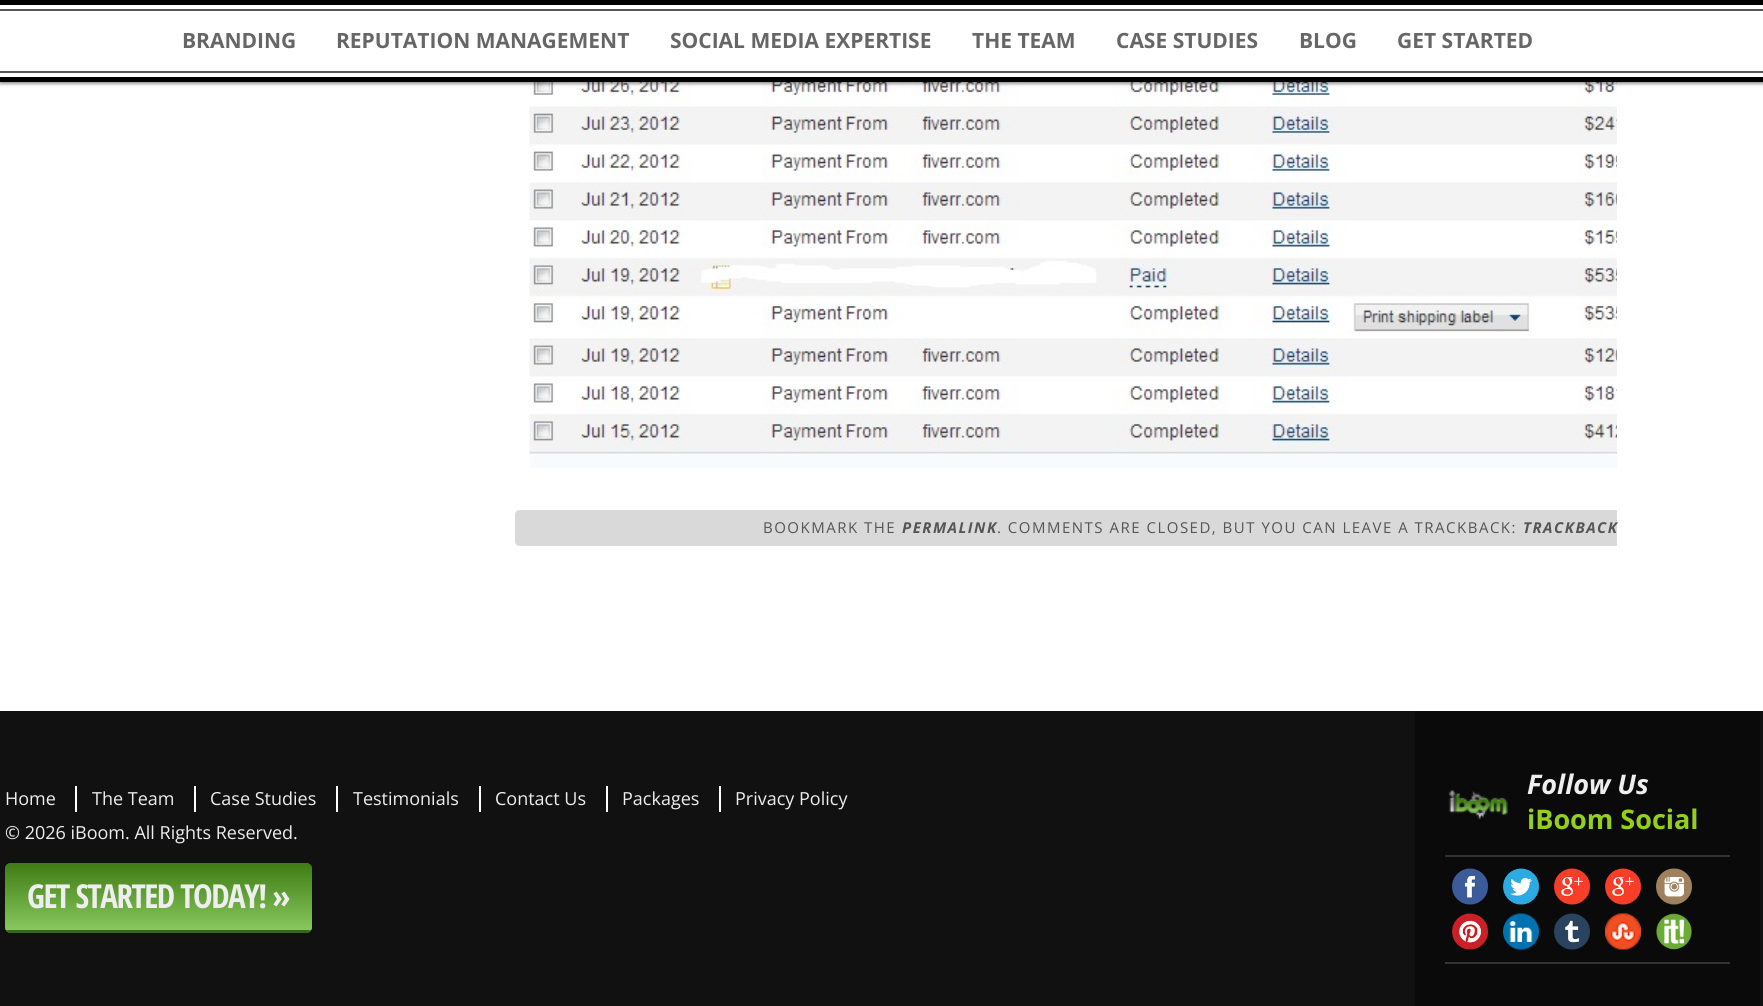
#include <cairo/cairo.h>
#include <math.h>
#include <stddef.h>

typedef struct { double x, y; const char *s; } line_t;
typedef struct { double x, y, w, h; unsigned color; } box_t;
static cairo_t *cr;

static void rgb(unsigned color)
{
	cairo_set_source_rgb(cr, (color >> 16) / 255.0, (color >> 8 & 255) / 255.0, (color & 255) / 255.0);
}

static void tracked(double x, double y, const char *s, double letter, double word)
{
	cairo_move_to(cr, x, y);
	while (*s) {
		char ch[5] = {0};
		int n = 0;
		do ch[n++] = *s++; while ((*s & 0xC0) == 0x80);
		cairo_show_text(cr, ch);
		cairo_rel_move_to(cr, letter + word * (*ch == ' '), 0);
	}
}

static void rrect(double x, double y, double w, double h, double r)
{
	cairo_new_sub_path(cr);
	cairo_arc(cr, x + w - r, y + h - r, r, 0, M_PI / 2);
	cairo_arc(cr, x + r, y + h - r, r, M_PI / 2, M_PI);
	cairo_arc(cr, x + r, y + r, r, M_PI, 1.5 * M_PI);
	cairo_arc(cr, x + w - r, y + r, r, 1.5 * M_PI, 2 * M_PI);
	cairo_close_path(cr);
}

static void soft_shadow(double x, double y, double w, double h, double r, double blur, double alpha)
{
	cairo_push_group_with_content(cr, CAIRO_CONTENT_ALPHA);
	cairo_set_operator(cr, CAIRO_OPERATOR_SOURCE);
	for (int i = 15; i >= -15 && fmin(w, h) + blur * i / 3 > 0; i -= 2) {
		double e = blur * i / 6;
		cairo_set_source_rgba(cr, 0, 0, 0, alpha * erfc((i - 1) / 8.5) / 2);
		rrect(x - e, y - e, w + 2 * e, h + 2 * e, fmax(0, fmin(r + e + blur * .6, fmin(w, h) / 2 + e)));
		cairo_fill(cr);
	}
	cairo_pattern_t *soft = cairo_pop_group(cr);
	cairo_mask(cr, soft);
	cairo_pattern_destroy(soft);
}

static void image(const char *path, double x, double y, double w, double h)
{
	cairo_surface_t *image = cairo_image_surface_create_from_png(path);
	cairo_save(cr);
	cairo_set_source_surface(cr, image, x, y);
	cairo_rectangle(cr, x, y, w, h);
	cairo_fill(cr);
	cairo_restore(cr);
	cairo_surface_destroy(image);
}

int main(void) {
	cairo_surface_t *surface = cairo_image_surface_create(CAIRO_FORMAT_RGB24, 1763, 1006);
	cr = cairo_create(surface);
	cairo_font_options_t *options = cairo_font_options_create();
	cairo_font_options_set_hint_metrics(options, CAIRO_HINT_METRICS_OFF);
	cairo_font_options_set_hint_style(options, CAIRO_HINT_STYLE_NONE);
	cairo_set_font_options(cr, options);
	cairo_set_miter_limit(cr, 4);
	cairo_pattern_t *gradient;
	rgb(0xffffff);
	cairo_paint(cr);
	image("img/1.png", 529, 82, 1088, 386);
	rgb(0x000000);
	soft_shadow(0, 3, 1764, 81, 0, 1.5, 0.4);
	{
		static const box_t items[] = {
			{0, 5, 1763, 72, 0xffffff},
			{0, 0, 1763, 5, 0x000000},
			{0, 77, 1763, 5, 0x000000},
			{0, 9, 1763, 2, 0x555555},
			{0, 71, 1763, 2, 0x555555},
		};
		for (size_t i = 0; i < sizeof items / sizeof *items; i++) {
			rgb(items[i].color);
			cairo_rectangle(cr, items[i].x, items[i].y, items[i].w, items[i].h);
			cairo_fill(cr);
		}
	}
	rgb(0xd9d9d9);
	cairo_new_path(cr);
	cairo_move_to(cr, 520, 510);
	cairo_line_to(cr, 1617, 510);
	cairo_line_to(cr, 1617, 546);
	cairo_line_to(cr, 520, 546);
	cairo_curve_to(cr, 517, 546, 515, 544, 515, 541);
	cairo_line_to(cr, 515, 515);
	cairo_curve_to(cr, 515, 512, 517, 510, 520, 510);
	cairo_close_path(cr);
	cairo_fill(cr);
	{
		static const box_t items[] = {
			{0, 711, 1763, 295, 0x111111},
			{75, 786, 2, 26, 0xffffff},
			{194, 786, 2, 26, 0xffffff},
			{336, 786, 2, 26, 0xffffff},
			{479, 786, 2, 26, 0xffffff},
			{606, 786, 2, 26, 0xffffff},
			{719, 786, 2, 26, 0xffffff},
			{1415, 711, 345, 295, 0x0a0a0a},
		};
		for (size_t i = 0; i < sizeof items / sizeof *items; i++) {
			rgb(items[i].color);
			cairo_rectangle(cr, items[i].x, items[i].y, items[i].w, items[i].h);
			cairo_fill(cr);
		}
	}
	image("img/2.png", 1448, 790, 60, 30);
	rgb(0x333333);
	cairo_rectangle(cr, 1445, 855, 285, 2);
	cairo_fill(cr);
	cairo_rectangle(cr, 1445, 962, 285, 2);
	cairo_fill(cr);
	image("img/3.png", 1452, 868, 36, 37);
	image("img/4.png", 1503, 868, 36, 37);
	image("img/5.png", 1554, 868, 36, 37);
	image("img/6.png", 1605, 868, 36, 37);
	image("img/7.png", 1656, 868, 36, 37);
	image("img/8.png", 1452, 913, 36, 37);
	image("img/9.png", 1503, 913, 36, 37);
	image("img/10.png", 1554, 913, 36, 37);
	image("img/11.png", 1605, 913, 36, 37);
	image("img/12.png", 1656, 913, 36, 37);
	rgb(0x4e8c22);
	rrect(5, 863, 307, 70, 6);
	cairo_fill(cr);
	cairo_save(cr);
	rrect(5, 863, 307, 70, 6);
	cairo_clip(cr);
	gradient = cairo_pattern_create_linear(158, 863, 158, 930);
	cairo_pattern_add_color_stop_rgba(gradient, 0, 0.247, 0.486, 0.075, 1);
	cairo_pattern_add_color_stop_rgba(gradient, 1, 0.533, 0.784, 0.369, 1);
	cairo_set_source(cr, gradient);
	cairo_pattern_destroy(gradient);
	cairo_new_path(cr);
	cairo_move_to(cr, 11, 863);
	cairo_line_to(cr, 306, 863);
	cairo_curve_to(cr, 309.5, 863, 312, 865.5, 312, 869);
	cairo_line_to(cr, 312, 930);
	cairo_line_to(cr, 5, 930);
	cairo_line_to(cr, 5, 869);
	cairo_curve_to(cr, 5, 865.5, 7.5, 863, 11, 863);
	cairo_close_path(cr);
	cairo_fill(cr);
	gradient = cairo_pattern_create_linear(158, 930, 158, 998);
	cairo_pattern_add_color_stop_rgba(gradient, 0, 0.247, 0.486, 0.075, 1);
	cairo_pattern_add_color_stop_rgba(gradient, 1, 0.533, 0.784, 0.369, 1);
	cairo_set_source(cr, gradient);
	cairo_pattern_destroy(gradient);
	cairo_rectangle(cr, 5, 930, 307, 3);
	cairo_fill(cr);
	cairo_restore(cr);
	rgb(0x376616);
	cairo_rectangle(cr, 8, 930, 301, 3);
	cairo_fill(cr);
	cairo_select_font_face(cr, "Open Sans", CAIRO_FONT_SLANT_NORMAL, CAIRO_FONT_WEIGHT_BOLD);
	cairo_set_font_size(cr, 21);
	rgb(0x666666);
	{
		static const line_t items[] = {
			{182, 48, "BRANDING"},
			{336, 48, "REPUTATION MANAGEMENT"},
			{670, 48, "SOCIAL MEDIA EXPERTISE"},
			{972, 48, "THE TEAM"},
			{1116, 48, "CASE STUDIES"},
			{1299, 48, "BLOG"},
			{1397, 48, "GET STARTED"},
		};
		for (size_t i = 0; i < sizeof items / sizeof *items; i++) {
			cairo_move_to(cr, items[i].x, items[i].y);
			cairo_show_text(cr, items[i].s);
		}
	}
	cairo_select_font_face(cr, "Open Sans", CAIRO_FONT_SLANT_NORMAL, CAIRO_FONT_WEIGHT_NORMAL);
	cairo_set_font_size(cr, 15);
	rgb(0x555555);
	tracked(763, 533, "BOOKMARK THE", 1.5, 0);
	cairo_select_font_face(cr, "Open Sans", CAIRO_FONT_SLANT_ITALIC, CAIRO_FONT_WEIGHT_BOLD);
	tracked(902, 533, "PERMALINK", 1.5, 0);
	cairo_select_font_face(cr, "Open Sans", CAIRO_FONT_SLANT_NORMAL, CAIRO_FONT_WEIGHT_NORMAL);
	tracked(997, 533, ". COMMENTS ARE CLOSED, BUT YOU CAN LEAVE A TRACKBACK:", 1.5, 0);
	cairo_select_font_face(cr, "Open Sans", CAIRO_FONT_SLANT_ITALIC, CAIRO_FONT_WEIGHT_BOLD);
	tracked(1523, 533, "TRACKBACK", 1.5, 0);
	cairo_select_font_face(cr, "Open Sans", CAIRO_FONT_SLANT_NORMAL, CAIRO_FONT_WEIGHT_NORMAL);
	cairo_set_font_size(cr, 18);
	rgb(0xeeeeee);
	{
		static const line_t items[] = {
			{5, 805, "Home"},
			{92, 805, "The Team"},
			{210, 805, "Case Studies"},
			{353, 805, "Testimonials"},
			{495, 805, "Contact Us"},
			{622, 805, "Packages"},
			{735, 805, "Privacy Policy"},
		};
		for (size_t i = 0; i < sizeof items / sizeof *items; i++) {
			cairo_move_to(cr, items[i].x, items[i].y);
			cairo_show_text(cr, items[i].s);
		}
	}
	cairo_select_font_face(cr, "Open Sans", CAIRO_FONT_SLANT_ITALIC, CAIRO_FONT_WEIGHT_BOLD);
	cairo_set_font_size(cr, 27);
	cairo_move_to(cr, 1527, 794);
	cairo_show_text(cr, "Follow Us");
	cairo_select_font_face(cr, "Open Sans", CAIRO_FONT_SLANT_NORMAL, CAIRO_FONT_WEIGHT_BOLD);
	rgb(0x93cf1c);
	cairo_move_to(cr, 1527, 829);
	cairo_show_text(cr, "iBoom Social");
	cairo_select_font_face(cr, "Open Sans", CAIRO_FONT_SLANT_NORMAL, CAIRO_FONT_WEIGHT_NORMAL);
	cairo_set_font_size(cr, 18);
	rgb(0xeeeeee);
	cairo_move_to(cr, 5, 839);
	cairo_show_text(cr, "© 2026 iBoom. All Rights Reserved.");
	cairo_select_font_face(cr, "Open Sans Condensed", CAIRO_FONT_SLANT_NORMAL, CAIRO_FONT_WEIGHT_BOLD);
	cairo_set_font_size(cr, 33);
	tracked(27, 908, "GET STARTED TODAY! »", -1.5, 0);
	cairo_surface_write_to_png(surface, "page.png");
	cairo_font_options_destroy(options);
	cairo_destroy(cr);
	cairo_surface_destroy(surface);
	return 0;
}
